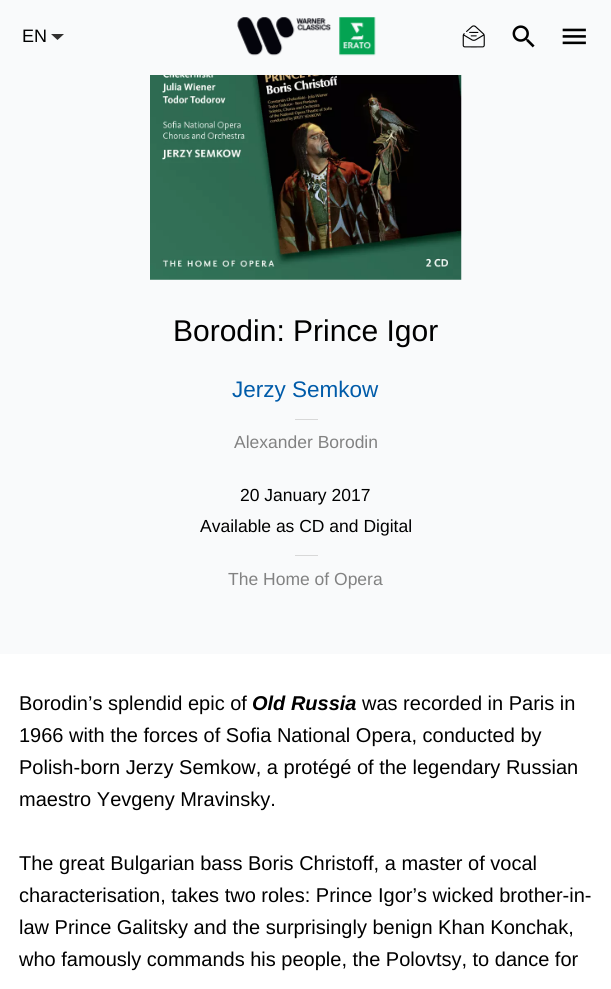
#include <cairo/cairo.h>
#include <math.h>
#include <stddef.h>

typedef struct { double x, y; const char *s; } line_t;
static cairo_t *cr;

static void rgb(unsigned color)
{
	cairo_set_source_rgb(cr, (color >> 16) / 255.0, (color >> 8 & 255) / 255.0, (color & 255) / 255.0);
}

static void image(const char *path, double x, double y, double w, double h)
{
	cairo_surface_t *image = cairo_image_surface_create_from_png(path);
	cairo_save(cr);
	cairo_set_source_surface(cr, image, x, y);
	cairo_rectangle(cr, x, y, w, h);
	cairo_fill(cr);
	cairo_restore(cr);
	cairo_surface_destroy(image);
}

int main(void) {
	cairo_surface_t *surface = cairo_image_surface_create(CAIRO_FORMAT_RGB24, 611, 989);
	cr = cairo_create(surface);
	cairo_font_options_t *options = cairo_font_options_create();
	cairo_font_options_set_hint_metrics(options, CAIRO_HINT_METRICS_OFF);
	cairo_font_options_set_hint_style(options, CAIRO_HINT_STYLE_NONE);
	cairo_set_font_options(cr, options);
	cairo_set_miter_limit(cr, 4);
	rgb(0xffffff);
	cairo_paint(cr);
	rgb(0xf9fafb);
	cairo_rectangle(cr, 0, 0, 611, 654);
	cairo_fill(cr);
	rgb(0x323130);
	cairo_new_path(cr);
	cairo_move_to(cr, 51, 34);
	cairo_line_to(cr, 64, 34);
	cairo_line_to(cr, 57.5, 40);
	cairo_close_path(cr);
	cairo_fill(cr);
	image("img/1.png", 237, 17, 139, 39);
	image("img/2.png", 462, 25, 23, 23);
	image("img/3.png", 512, 25, 23, 23);
	image("img/4.png", 562, 28, 24, 17);
	image("img/5.png", 150, 75, 312, 205);
	rgb(0xd8d8d8);
	cairo_rectangle(cr, 295, 419, 23, 1);
	cairo_fill(cr);
	cairo_rectangle(cr, 295, 555, 23, 1);
	cairo_fill(cr);
	cairo_select_font_face(cr, "Liberation Sans", CAIRO_FONT_SLANT_NORMAL, CAIRO_FONT_WEIGHT_NORMAL);
	cairo_set_font_size(cr, 18);
	rgb(0x000000);
	cairo_move_to(cr, 22, 42);
	cairo_show_text(cr, "EN");
	cairo_set_font_size(cr, 30);
	cairo_move_to(cr, 173, 341);
	cairo_show_text(cr, "Borodin: Prince Igor");
	cairo_set_font_size(cr, 22.5);
	rgb(0x005ba9);
	cairo_move_to(cr, 232, 397);
	cairo_show_text(cr, "Jerzy Semkow");
	cairo_set_font_size(cr, 17.5);
	rgb(0x828282);
	cairo_move_to(cr, 234, 448);
	cairo_show_text(cr, "Alexander Borodin");
	rgb(0x000000);
	cairo_move_to(cr, 240, 501);
	cairo_show_text(cr, "20 January 2017");
	cairo_move_to(cr, 200, 532);
	cairo_show_text(cr, "Available as CD and Digital");
	rgb(0x828282);
	cairo_move_to(cr, 228, 585);
	cairo_show_text(cr, "The Home of Opera");
	cairo_set_font_size(cr, 20);
	rgb(0x000000);
	cairo_move_to(cr, 19, 710);
	cairo_show_text(cr, "Borodin’s splendid epic of");
	cairo_select_font_face(cr, "Liberation Sans", CAIRO_FONT_SLANT_ITALIC, CAIRO_FONT_WEIGHT_BOLD);
	cairo_move_to(cr, 252, 710);
	cairo_show_text(cr, "Old Russia");
	cairo_select_font_face(cr, "Liberation Sans", CAIRO_FONT_SLANT_NORMAL, CAIRO_FONT_WEIGHT_NORMAL);
	{
		static const line_t items[] = {
			{362, 710, "was recorded in Paris in"},
			{19, 742, "1966 with the forces of Sofia National Opera, conducted by"},
			{19, 774, "Polish-born Jerzy Semkow, a protégé of the legendary Russian"},
			{19, 806, "maestro Yevgeny Mravinsky."},
			{19, 870, "The great Bulgarian bass Boris Christoff, a master of vocal"},
			{19, 902, "characterisation, takes two roles: Prince Igor’s wicked brother-in-"},
			{19, 934, "law Prince Galitsky and the surprisingly benign Khan Konchak,"},
			{19, 966, "who famously commands his people, the Polovtsy, to dance for"},
		};
		for (size_t i = 0; i < sizeof items / sizeof *items; i++) {
			cairo_move_to(cr, items[i].x, items[i].y);
			cairo_show_text(cr, items[i].s);
		}
	}
	cairo_surface_write_to_png(surface, "page.png");
	cairo_font_options_destroy(options);
	cairo_destroy(cr);
	cairo_surface_destroy(surface);
	return 0;
}
